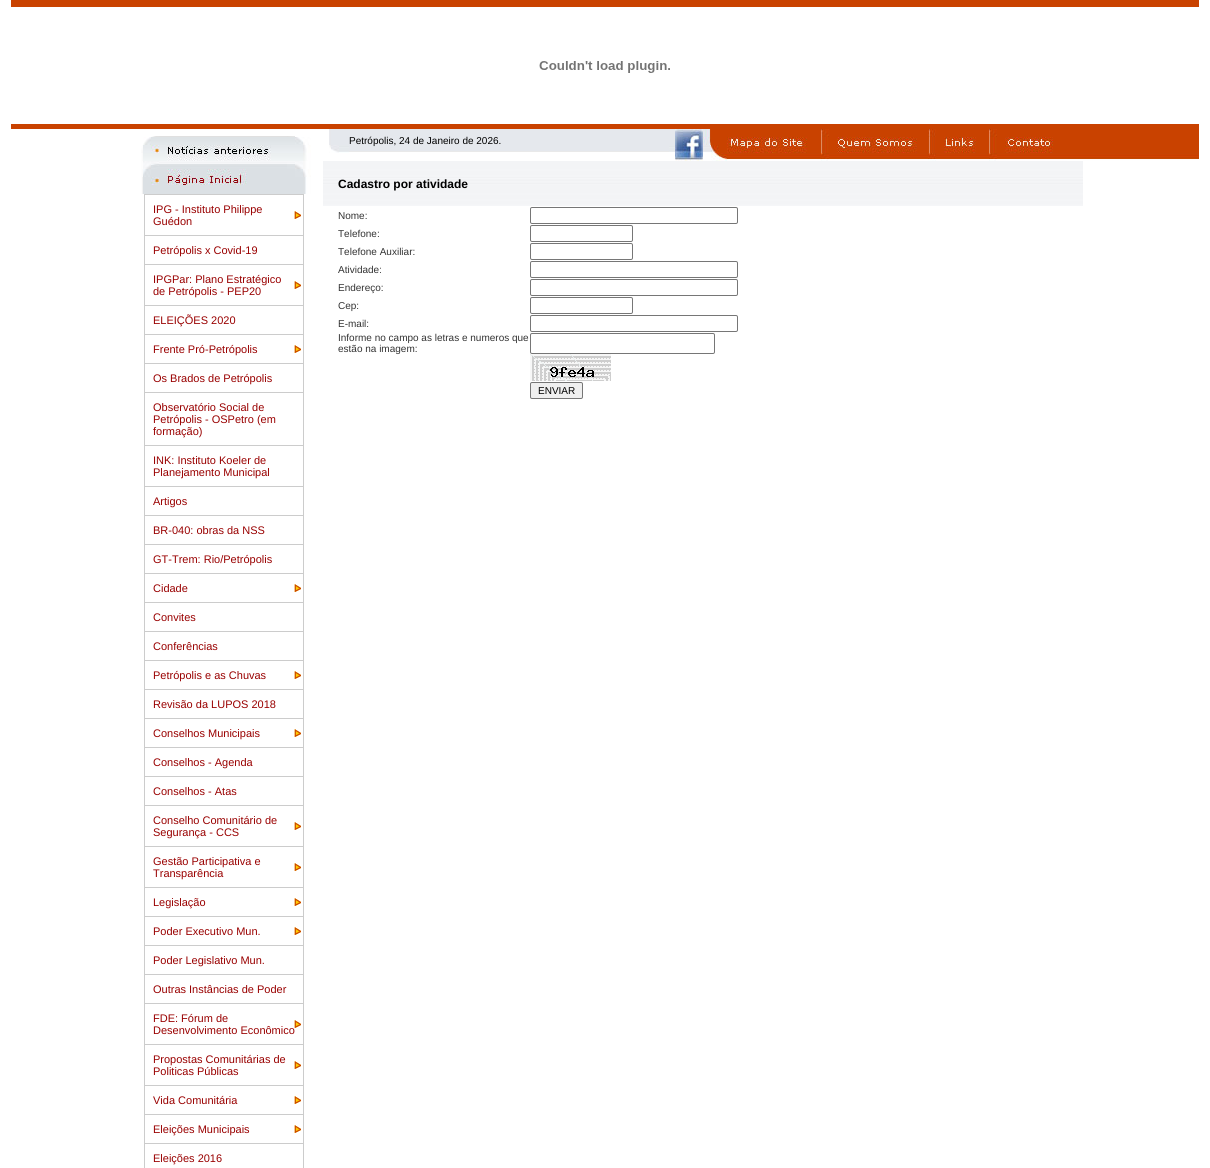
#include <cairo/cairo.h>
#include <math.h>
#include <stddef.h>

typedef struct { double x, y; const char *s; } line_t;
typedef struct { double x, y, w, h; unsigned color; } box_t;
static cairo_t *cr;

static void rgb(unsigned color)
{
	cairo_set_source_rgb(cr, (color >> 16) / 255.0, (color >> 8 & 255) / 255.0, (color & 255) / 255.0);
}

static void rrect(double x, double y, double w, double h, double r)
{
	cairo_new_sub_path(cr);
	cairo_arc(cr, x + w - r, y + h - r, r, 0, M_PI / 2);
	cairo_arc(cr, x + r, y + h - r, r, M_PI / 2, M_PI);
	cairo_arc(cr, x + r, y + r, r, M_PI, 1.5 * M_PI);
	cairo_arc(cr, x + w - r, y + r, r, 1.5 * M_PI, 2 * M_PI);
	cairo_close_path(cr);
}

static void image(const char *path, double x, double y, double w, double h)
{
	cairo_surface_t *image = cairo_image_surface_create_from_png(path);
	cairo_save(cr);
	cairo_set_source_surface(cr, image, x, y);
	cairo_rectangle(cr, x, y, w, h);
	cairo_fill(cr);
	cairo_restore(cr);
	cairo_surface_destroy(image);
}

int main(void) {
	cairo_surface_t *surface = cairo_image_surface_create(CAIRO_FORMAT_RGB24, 1210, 1168);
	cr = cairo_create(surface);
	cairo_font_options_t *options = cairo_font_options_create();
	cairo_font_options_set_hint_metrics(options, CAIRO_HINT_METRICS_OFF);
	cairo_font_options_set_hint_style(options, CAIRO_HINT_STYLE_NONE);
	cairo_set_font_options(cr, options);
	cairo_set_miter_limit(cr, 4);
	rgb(0xffffff);
	cairo_paint(cr);
	rgb(0xc94200);
	cairo_rectangle(cr, 11, 0, 1188, 7);
	cairo_fill(cr);
	image("img/1.png", 539, 61, 131, 12);
	cairo_rectangle(cr, 11, 124, 1188, 5);
	cairo_fill(cr);
	image("img/2.png", 141, 136, 170, 58);
	image("img/3.png", 294, 211, 7, 8);
	{
		static const box_t items[] = {
			{144, 194, 160, 1, 0xcccccc},
			{303, 194, 1, 41, 0xcccccc},
			{144, 194, 1, 41, 0xcccccc},
			{144, 235, 160, 1, 0xcccccc},
			{303, 235, 1, 29, 0xcccccc},
			{144, 235, 1, 29, 0xcccccc},
		};
		for (size_t i = 0; i < sizeof items / sizeof *items; i++) {
			rgb(items[i].color);
			cairo_rectangle(cr, items[i].x, items[i].y, items[i].w, items[i].h);
			cairo_fill(cr);
		}
	}
	image("img/3.png", 294, 281, 7, 8);
	{
		static const box_t items[] = {
			{144, 264, 160, 1, 0xcccccc},
			{303, 264, 1, 41, 0xcccccc},
			{144, 264, 1, 41, 0xcccccc},
			{144, 305, 160, 1, 0xcccccc},
			{303, 305, 1, 29, 0xcccccc},
			{144, 305, 1, 29, 0xcccccc},
		};
		for (size_t i = 0; i < sizeof items / sizeof *items; i++) {
			rgb(items[i].color);
			cairo_rectangle(cr, items[i].x, items[i].y, items[i].w, items[i].h);
			cairo_fill(cr);
		}
	}
	image("img/3.png", 294, 345, 7, 8);
	{
		static const box_t items[] = {
			{144, 334, 160, 1, 0xcccccc},
			{303, 334, 1, 29, 0xcccccc},
			{144, 334, 1, 29, 0xcccccc},
			{144, 363, 160, 1, 0xcccccc},
			{303, 363, 1, 29, 0xcccccc},
			{144, 363, 1, 29, 0xcccccc},
			{144, 392, 160, 1, 0xcccccc},
			{303, 392, 1, 53, 0xcccccc},
			{144, 392, 1, 53, 0xcccccc},
			{144, 445, 160, 1, 0xcccccc},
			{303, 445, 1, 41, 0xcccccc},
			{144, 445, 1, 41, 0xcccccc},
			{144, 486, 160, 1, 0xcccccc},
			{303, 486, 1, 29, 0xcccccc},
			{144, 486, 1, 29, 0xcccccc},
			{144, 515, 160, 1, 0xcccccc},
			{303, 515, 1, 29, 0xcccccc},
			{144, 515, 1, 29, 0xcccccc},
			{144, 544, 160, 1, 0xcccccc},
			{303, 544, 1, 29, 0xcccccc},
			{144, 544, 1, 29, 0xcccccc},
		};
		for (size_t i = 0; i < sizeof items / sizeof *items; i++) {
			rgb(items[i].color);
			cairo_rectangle(cr, items[i].x, items[i].y, items[i].w, items[i].h);
			cairo_fill(cr);
		}
	}
	image("img/3.png", 294, 584, 7, 8);
	{
		static const box_t items[] = {
			{144, 573, 160, 1, 0xcccccc},
			{303, 573, 1, 29, 0xcccccc},
			{144, 573, 1, 29, 0xcccccc},
			{144, 602, 160, 1, 0xcccccc},
			{303, 602, 1, 29, 0xcccccc},
			{144, 602, 1, 29, 0xcccccc},
			{144, 631, 160, 1, 0xcccccc},
			{303, 631, 1, 29, 0xcccccc},
			{144, 631, 1, 29, 0xcccccc},
		};
		for (size_t i = 0; i < sizeof items / sizeof *items; i++) {
			rgb(items[i].color);
			cairo_rectangle(cr, items[i].x, items[i].y, items[i].w, items[i].h);
			cairo_fill(cr);
		}
	}
	image("img/3.png", 294, 671, 7, 8);
	{
		static const box_t items[] = {
			{144, 660, 160, 1, 0xcccccc},
			{303, 660, 1, 29, 0xcccccc},
			{144, 660, 1, 29, 0xcccccc},
			{144, 689, 160, 1, 0xcccccc},
			{303, 689, 1, 29, 0xcccccc},
			{144, 689, 1, 29, 0xcccccc},
		};
		for (size_t i = 0; i < sizeof items / sizeof *items; i++) {
			rgb(items[i].color);
			cairo_rectangle(cr, items[i].x, items[i].y, items[i].w, items[i].h);
			cairo_fill(cr);
		}
	}
	image("img/3.png", 294, 729, 7, 8);
	{
		static const box_t items[] = {
			{144, 718, 160, 1, 0xcccccc},
			{303, 718, 1, 29, 0xcccccc},
			{144, 718, 1, 29, 0xcccccc},
			{144, 747, 160, 1, 0xcccccc},
			{303, 747, 1, 29, 0xcccccc},
			{144, 747, 1, 29, 0xcccccc},
			{144, 776, 160, 1, 0xcccccc},
			{303, 776, 1, 29, 0xcccccc},
			{144, 776, 1, 29, 0xcccccc},
		};
		for (size_t i = 0; i < sizeof items / sizeof *items; i++) {
			rgb(items[i].color);
			cairo_rectangle(cr, items[i].x, items[i].y, items[i].w, items[i].h);
			cairo_fill(cr);
		}
	}
	image("img/3.png", 294, 822, 7, 8);
	{
		static const box_t items[] = {
			{144, 805, 160, 1, 0xcccccc},
			{303, 805, 1, 41, 0xcccccc},
			{144, 805, 1, 41, 0xcccccc},
		};
		for (size_t i = 0; i < sizeof items / sizeof *items; i++) {
			rgb(items[i].color);
			cairo_rectangle(cr, items[i].x, items[i].y, items[i].w, items[i].h);
			cairo_fill(cr);
		}
	}
	image("img/3.png", 294, 863, 7, 8);
	{
		static const box_t items[] = {
			{144, 846, 160, 1, 0xcccccc},
			{303, 846, 1, 41, 0xcccccc},
			{144, 846, 1, 41, 0xcccccc},
		};
		for (size_t i = 0; i < sizeof items / sizeof *items; i++) {
			rgb(items[i].color);
			cairo_rectangle(cr, items[i].x, items[i].y, items[i].w, items[i].h);
			cairo_fill(cr);
		}
	}
	image("img/3.png", 294, 898, 7, 8);
	{
		static const box_t items[] = {
			{144, 887, 160, 1, 0xcccccc},
			{303, 887, 1, 29, 0xcccccc},
			{144, 887, 1, 29, 0xcccccc},
		};
		for (size_t i = 0; i < sizeof items / sizeof *items; i++) {
			rgb(items[i].color);
			cairo_rectangle(cr, items[i].x, items[i].y, items[i].w, items[i].h);
			cairo_fill(cr);
		}
	}
	image("img/3.png", 294, 927, 7, 8);
	{
		static const box_t items[] = {
			{144, 916, 160, 1, 0xcccccc},
			{303, 916, 1, 29, 0xcccccc},
			{144, 916, 1, 29, 0xcccccc},
			{144, 945, 160, 1, 0xcccccc},
			{303, 945, 1, 29, 0xcccccc},
			{144, 945, 1, 29, 0xcccccc},
			{144, 974, 160, 1, 0xcccccc},
			{303, 974, 1, 29, 0xcccccc},
			{144, 974, 1, 29, 0xcccccc},
		};
		for (size_t i = 0; i < sizeof items / sizeof *items; i++) {
			rgb(items[i].color);
			cairo_rectangle(cr, items[i].x, items[i].y, items[i].w, items[i].h);
			cairo_fill(cr);
		}
	}
	image("img/3.png", 294, 1020, 7, 8);
	{
		static const box_t items[] = {
			{144, 1003, 160, 1, 0xcccccc},
			{303, 1003, 1, 41, 0xcccccc},
			{144, 1003, 1, 41, 0xcccccc},
		};
		for (size_t i = 0; i < sizeof items / sizeof *items; i++) {
			rgb(items[i].color);
			cairo_rectangle(cr, items[i].x, items[i].y, items[i].w, items[i].h);
			cairo_fill(cr);
		}
	}
	image("img/3.png", 294, 1061, 7, 8);
	{
		static const box_t items[] = {
			{144, 1044, 160, 1, 0xcccccc},
			{303, 1044, 1, 41, 0xcccccc},
			{144, 1044, 1, 41, 0xcccccc},
		};
		for (size_t i = 0; i < sizeof items / sizeof *items; i++) {
			rgb(items[i].color);
			cairo_rectangle(cr, items[i].x, items[i].y, items[i].w, items[i].h);
			cairo_fill(cr);
		}
	}
	image("img/3.png", 294, 1096, 7, 8);
	{
		static const box_t items[] = {
			{144, 1085, 160, 1, 0xcccccc},
			{303, 1085, 1, 29, 0xcccccc},
			{144, 1085, 1, 29, 0xcccccc},
		};
		for (size_t i = 0; i < sizeof items / sizeof *items; i++) {
			rgb(items[i].color);
			cairo_rectangle(cr, items[i].x, items[i].y, items[i].w, items[i].h);
			cairo_fill(cr);
		}
	}
	image("img/3.png", 294, 1125, 7, 8);
	{
		static const box_t items[] = {
			{144, 1114, 160, 1, 0xcccccc},
			{303, 1114, 1, 29, 0xcccccc},
			{144, 1114, 1, 29, 0xcccccc},
			{144, 1143, 160, 1, 0xcccccc},
			{303, 1143, 1, 25, 0xcccccc},
			{144, 1143, 1, 25, 0xcccccc},
		};
		for (size_t i = 0; i < sizeof items / sizeof *items; i++) {
			rgb(items[i].color);
			cairo_rectangle(cr, items[i].x, items[i].y, items[i].w, items[i].h);
			cairo_fill(cr);
		}
	}
	image("img/4.png", 329, 129, 20, 24);
	rgb(0xe5e8ed);
	cairo_rectangle(cr, 349, 129, 320, 22);
	cairo_fill(cr);
	rgb(0xe9e9e9);
	cairo_rectangle(cr, 349, 151, 320, 1);
	cairo_fill(cr);
	image("img/5.png", 669, 129, 6, 23);
	image("img/6.png", 675, 129, 28, 32);
	image("img/7.png", 703, 129, 118, 32);
	image("img/8.png", 821, 129, 107, 32);
	image("img/9.png", 928, 129, 61, 32);
	image("img/10.png", 989, 129, 78, 32);
	image("img/11.png", 1067, 129, 132, 31);
	image("img/12.png", 323, 161, 760, 45);
	rrect(530.5, 207.5, 207, 16, 1.5);
	rgb(0x767676);
	cairo_set_line_width(cr, 1);
	cairo_stroke(cr);
	rrect(530.5, 225.5, 102, 16, 1.5);
	cairo_stroke(cr);
	rrect(530.5, 243.5, 102, 16, 1.5);
	cairo_stroke(cr);
	rrect(530.5, 261.5, 207, 16, 1.5);
	cairo_stroke(cr);
	rrect(530.5, 279.5, 207, 16, 1.5);
	cairo_stroke(cr);
	rrect(530.5, 297.5, 102, 16, 1.5);
	cairo_stroke(cr);
	rrect(530.5, 315.5, 207, 16, 1.5);
	cairo_stroke(cr);
	rrect(530.5, 333.5, 184, 20, 1.5);
	cairo_stroke(cr);
	image("img/13.png", 530, 354, 81, 27);
	rgb(0xefefef);
	rrect(530.5, 382.5, 52, 16, 1.5);
	cairo_fill_preserve(cr);
	rgb(0x767676);
	cairo_stroke(cr);
	cairo_select_font_face(cr, "Liberation Sans", CAIRO_FONT_SLANT_NORMAL, CAIRO_FONT_WEIGHT_NORMAL);
	cairo_set_font_size(cr, 11);
	rgb(0x990000);
	{
		static const line_t items[] = {
			{153, 213, "IPG - Instituto Philippe"},
			{153, 225, "Guédon"},
			{153, 254, "Petrópolis x Covid-19"},
			{153, 283, "IPGPar: Plano Estratégico"},
			{153, 295, "de Petrópolis - PEP20"},
			{153, 324, "ELEIÇÕES 2020"},
			{153, 353, "Frente Pró-Petrópolis"},
			{153, 382, "Os Brados de Petrópolis"},
			{153, 411, "Observatório Social de"},
			{153, 423, "Petrópolis - OSPetro (em"},
			{153, 435, "formação)"},
			{153, 464, "INK: Instituto Koeler de"},
			{153, 476, "Planejamento Municipal"},
			{153, 505, "Artigos"},
			{153, 534, "BR-040: obras da NSS"},
			{153, 563, "GT-Trem: Rio/Petrópolis"},
			{153, 592, "Cidade"},
			{153, 621, "Convites"},
			{153, 650, "Conferências"},
			{153, 679, "Petrópolis e as Chuvas"},
			{153, 708, "Revisão da LUPOS 2018"},
			{153, 737, "Conselhos Municipais"},
			{153, 766, "Conselhos - Agenda"},
			{153, 795, "Conselhos - Atas"},
			{153, 824, "Conselho Comunitário de"},
			{153, 836, "Segurança - CCS"},
			{153, 865, "Gestão Participativa e"},
			{153, 877, "Transparência"},
			{153, 906, "Legislação"},
			{153, 935, "Poder Executivo Mun."},
			{153, 964, "Poder Legislativo Mun."},
			{153, 993, "Outras Instâncias de Poder"},
			{153, 1022, "FDE: Fórum de"},
			{153, 1034, "Desenvolvimento Econômico"},
			{153, 1063, "Propostas Comunitárias de"},
			{153, 1075, "Politicas Públicas"},
			{153, 1104, "Vida Comunitária"},
			{153, 1133, "Eleições Municipais"},
			{153, 1162, "Eleições 2016"},
		};
		for (size_t i = 0; i < sizeof items / sizeof *items; i++) {
			cairo_move_to(cr, items[i].x, items[i].y);
			cairo_show_text(cr, items[i].s);
		}
	}
	cairo_set_font_size(cr, 10);
	rgb(0x000000);
	cairo_move_to(cr, 349, 144);
	cairo_show_text(cr, "Petrópolis, 24 de Janeiro de 2026.");
	cairo_select_font_face(cr, "Liberation Sans", CAIRO_FONT_SLANT_NORMAL, CAIRO_FONT_WEIGHT_BOLD);
	cairo_set_font_size(cr, 12);
	cairo_move_to(cr, 338, 188);
	cairo_show_text(cr, "Cadastro por atividade");
	cairo_select_font_face(cr, "Liberation Sans", CAIRO_FONT_SLANT_NORMAL, CAIRO_FONT_WEIGHT_NORMAL);
	cairo_set_font_size(cr, 10);
	rgb(0x333333);
	{
		static const line_t items[] = {
			{338, 219, "Nome:"},
			{338, 237, "Telefone:"},
			{338, 255, "Telefone Auxiliar:"},
			{338, 273, "Atividade:"},
			{338, 291, "Endereço:"},
			{338, 309, "Cep:"},
			{338, 327, "E-mail:"},
			{338, 341, "Informe no campo as letras e numeros que"},
			{338, 352, "estão na imagem:"},
		};
		for (size_t i = 0; i < sizeof items / sizeof *items; i++) {
			cairo_move_to(cr, items[i].x, items[i].y);
			cairo_show_text(cr, items[i].s);
		}
	}
	rgb(0x000000);
	cairo_move_to(cr, 538, 394);
	cairo_show_text(cr, "ENVIAR");
	cairo_surface_write_to_png(surface, "page.png");
	cairo_font_options_destroy(options);
	cairo_destroy(cr);
	cairo_surface_destroy(surface);
	return 0;
}
